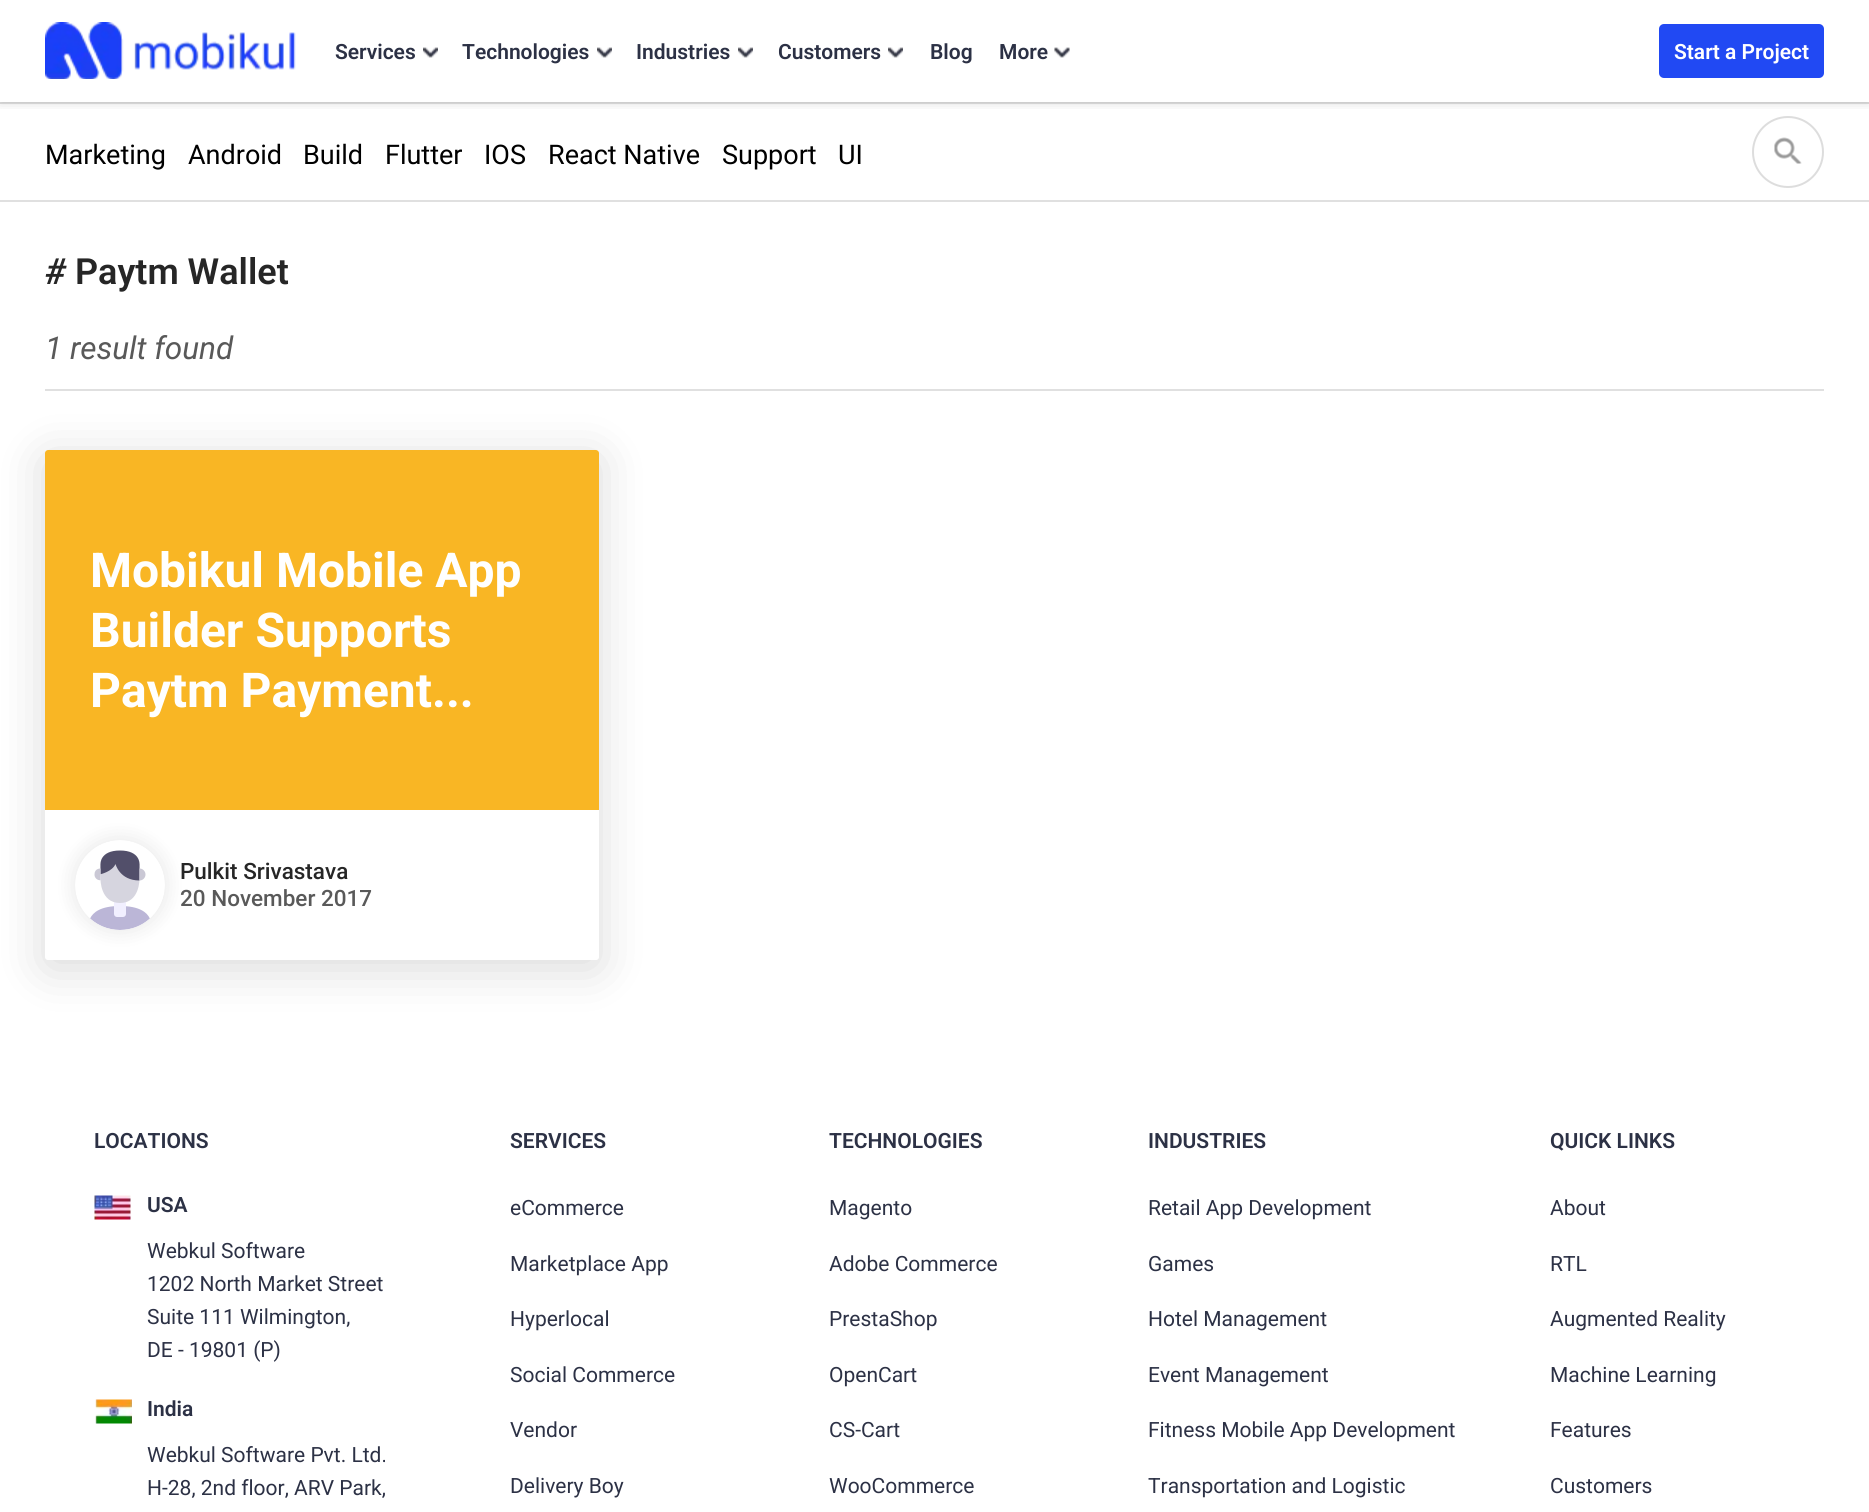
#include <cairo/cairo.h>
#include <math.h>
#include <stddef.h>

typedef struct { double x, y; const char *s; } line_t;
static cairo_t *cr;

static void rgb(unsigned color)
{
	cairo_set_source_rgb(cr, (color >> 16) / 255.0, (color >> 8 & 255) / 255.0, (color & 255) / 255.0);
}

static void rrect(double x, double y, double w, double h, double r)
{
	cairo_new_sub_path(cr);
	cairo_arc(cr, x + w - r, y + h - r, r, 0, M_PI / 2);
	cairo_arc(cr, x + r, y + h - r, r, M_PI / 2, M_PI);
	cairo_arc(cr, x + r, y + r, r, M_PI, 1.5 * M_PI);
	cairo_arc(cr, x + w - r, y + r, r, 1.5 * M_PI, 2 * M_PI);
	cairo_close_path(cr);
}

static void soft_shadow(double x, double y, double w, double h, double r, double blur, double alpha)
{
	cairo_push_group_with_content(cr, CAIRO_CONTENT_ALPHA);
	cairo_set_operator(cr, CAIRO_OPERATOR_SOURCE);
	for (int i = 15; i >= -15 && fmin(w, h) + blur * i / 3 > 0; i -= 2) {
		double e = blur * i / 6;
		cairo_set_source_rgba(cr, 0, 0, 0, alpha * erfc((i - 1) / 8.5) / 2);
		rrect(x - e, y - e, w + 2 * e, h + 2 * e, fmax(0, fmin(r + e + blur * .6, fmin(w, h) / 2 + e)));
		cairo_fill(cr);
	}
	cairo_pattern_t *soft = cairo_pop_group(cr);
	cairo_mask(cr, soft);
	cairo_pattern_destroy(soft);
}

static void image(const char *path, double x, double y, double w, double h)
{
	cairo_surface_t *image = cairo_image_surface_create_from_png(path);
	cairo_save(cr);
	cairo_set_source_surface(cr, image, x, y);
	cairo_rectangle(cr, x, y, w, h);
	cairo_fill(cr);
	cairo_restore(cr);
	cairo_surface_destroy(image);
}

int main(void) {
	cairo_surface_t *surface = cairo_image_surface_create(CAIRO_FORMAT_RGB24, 1869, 1512);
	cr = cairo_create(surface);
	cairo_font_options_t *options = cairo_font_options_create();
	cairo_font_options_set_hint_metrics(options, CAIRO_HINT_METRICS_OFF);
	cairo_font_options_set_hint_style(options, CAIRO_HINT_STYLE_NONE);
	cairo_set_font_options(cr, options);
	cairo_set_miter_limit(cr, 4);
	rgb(0xffffff);
	cairo_paint(cr);
	rgb(0xe0e0e0);
	cairo_rectangle(cr, 0, 102, 1869, 2);
	cairo_fill(cr);
	image("img/4.png", 1774, 137, 28, 27);
	cairo_arc(cr, 1788, 152, 35, 0, 2 * M_PI);
	rgb(0xdddddd);
	cairo_stroke(cr);
	cairo_save(cr);
	cairo_rectangle(cr, 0, 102, 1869, 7);
	cairo_clip(cr);
	rgb(0x000000);
	soft_shadow(0, 0, 1869, 102, 0, 6, 0.16);
	cairo_restore(cr);
	image("img/1.png", 45, 22, 251, 57);
	image("img/2.png", 423, 47, 15, 11);
	image("img/2.png", 597, 47, 15, 11);
	image("img/2.png", 738, 47, 15, 11);
	image("img/2.png", 888, 47, 15, 11);
	image("img/3.png", 1054, 47, 16, 11);
	rgb(0x2149f3);
	rrect(1659, 24, 165, 54, 5);
	cairo_fill(cr);
	rgb(0xe0e0e0);
	cairo_rectangle(cr, 0, 200, 1869, 2);
	cairo_fill(cr);
	cairo_rectangle(cr, 45, 389, 1779, 2);
	cairo_fill(cr);
	cairo_save(cr);
	cairo_set_fill_rule(cr, CAIRO_FILL_RULE_EVEN_ODD);
	cairo_new_path(cr);
	cairo_move_to(cr, 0, 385);
	cairo_line_to(cr, 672, 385);
	cairo_line_to(cr, 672, 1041);
	cairo_line_to(cr, 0, 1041);
	cairo_close_path(cr);
	cairo_move_to(cr, 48, 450);
	cairo_line_to(cr, 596, 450);
	cairo_curve_to(cr, 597.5, 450, 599, 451.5, 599, 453);
	cairo_line_to(cr, 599, 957);
	cairo_curve_to(cr, 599, 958.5, 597.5, 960, 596, 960);
	cairo_line_to(cr, 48, 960);
	cairo_curve_to(cr, 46.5, 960, 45, 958.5, 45, 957);
	cairo_line_to(cr, 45, 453);
	cairo_curve_to(cr, 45, 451.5, 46.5, 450, 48, 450);
	cairo_close_path(cr);
	cairo_clip(cr);
	rgb(0x000000);
	soft_shadow(45, 458, 554, 510, 3, 24, 0.15);
	cairo_restore(cr);
	rgb(0xf9b624);
	cairo_new_path(cr);
	cairo_move_to(cr, 48, 450);
	cairo_line_to(cr, 596, 450);
	cairo_curve_to(cr, 597.5, 450, 599, 451.5, 599, 453);
	cairo_line_to(cr, 599, 810);
	cairo_line_to(cr, 45, 810);
	cairo_line_to(cr, 45, 453);
	cairo_curve_to(cr, 45, 451.5, 46.5, 450, 48, 450);
	cairo_close_path(cr);
	cairo_fill(cr);
	rgb(0x000000);
	soft_shadow(72, 837, 96, 96, 48, 9.5, 0.08);
	rgb(0xf2f2f2);
	cairo_arc(cr, 120, 885, 45, 0, 2 * M_PI);
	cairo_fill(cr);
	image("img/5.png", 75, 840, 90, 90);
	image("img/6.png", 94, 1195, 37, 25);
	image("img/7.png", 95, 1399, 37, 25);
	cairo_select_font_face(cr, "Roboto SemiBold", CAIRO_FONT_SLANT_NORMAL, CAIRO_FONT_WEIGHT_NORMAL);
	cairo_set_font_size(cr, 21);
	rgb(0x2c3145);
	{
		static const line_t items[] = {
			{335, 59, "Services"},
			{462, 59, "Technologies"},
			{636, 59, "Industries"},
			{778, 59, "Customers"},
			{930, 59, "Blog"},
			{999, 59, "More"},
		};
		for (size_t i = 0; i < sizeof items / sizeof *items; i++) {
			cairo_move_to(cr, items[i].x, items[i].y);
			cairo_show_text(cr, items[i].s);
		}
	}
	rgb(0xffffff);
	cairo_move_to(cr, 1674, 59);
	cairo_show_text(cr, "Start a Project");
	cairo_select_font_face(cr, "Roboto", CAIRO_FONT_SLANT_NORMAL, CAIRO_FONT_WEIGHT_NORMAL);
	cairo_set_font_size(cr, 27);
	rgb(0x000000);
	{
		static const line_t items[] = {
			{45, 164, "Marketing"},
			{188, 164, "Android"},
			{303, 164, "Build"},
			{385, 164, "Flutter"},
			{484, 164, "IOS"},
			{548, 164, "React Native"},
			{722, 164, "Support"},
			{838, 164, "UI"},
		};
		for (size_t i = 0; i < sizeof items / sizeof *items; i++) {
			cairo_move_to(cr, items[i].x, items[i].y);
			cairo_show_text(cr, items[i].s);
		}
	}
	cairo_select_font_face(cr, "Roboto SemiBold", CAIRO_FONT_SLANT_ITALIC, CAIRO_FONT_WEIGHT_NORMAL);
	cairo_set_font_size(cr, 36);
	rgb(0x262626);
	cairo_move_to(cr, 45, 284);
	cairo_show_text(cr, "#");
	cairo_select_font_face(cr, "Roboto SemiBold", CAIRO_FONT_SLANT_NORMAL, CAIRO_FONT_WEIGHT_NORMAL);
	cairo_move_to(cr, 75, 284);
	cairo_show_text(cr, "Paytm Wallet");
	cairo_select_font_face(cr, "Roboto", CAIRO_FONT_SLANT_ITALIC, CAIRO_FONT_WEIGHT_NORMAL);
	cairo_set_font_size(cr, 31.5);
	rgb(0x595959);
	cairo_move_to(cr, 45, 359);
	cairo_show_text(cr, "1 result found");
	cairo_select_font_face(cr, "Roboto", CAIRO_FONT_SLANT_NORMAL, CAIRO_FONT_WEIGHT_BOLD);
	cairo_set_font_size(cr, 48);
	rgb(0xffffff);
	{
		static const line_t items[] = {
			{90, 587, "Mobikul Mobile App"},
			{90, 647, "Builder Supports"},
			{90, 707, "Paytm Payment..."},
		};
		for (size_t i = 0; i < sizeof items / sizeof *items; i++) {
			cairo_move_to(cr, items[i].x, items[i].y);
			cairo_show_text(cr, items[i].s);
		}
	}
	cairo_select_font_face(cr, "Roboto Medium", CAIRO_FONT_SLANT_NORMAL, CAIRO_FONT_WEIGHT_NORMAL);
	cairo_set_font_size(cr, 22.5);
	rgb(0x262626);
	cairo_move_to(cr, 180, 879);
	cairo_show_text(cr, "Pulkit Srivastava");
	rgb(0x595959);
	cairo_move_to(cr, 180, 906);
	cairo_show_text(cr, "20 November 2017");
	cairo_select_font_face(cr, "Roboto SemiBold", CAIRO_FONT_SLANT_NORMAL, CAIRO_FONT_WEIGHT_NORMAL);
	cairo_set_font_size(cr, 21);
	rgb(0x2c3145);
	cairo_move_to(cr, 94, 1148);
	cairo_show_text(cr, "LOCATIONS");
	cairo_move_to(cr, 147, 1212);
	cairo_show_text(cr, "USA");
	cairo_select_font_face(cr, "Roboto", CAIRO_FONT_SLANT_NORMAL, CAIRO_FONT_WEIGHT_NORMAL);
	{
		static const line_t items[] = {
			{147, 1258, "Webkul Software"},
			{147, 1291, "1202 North Market Street"},
			{147, 1324, "Suite 111 Wilmington,"},
			{147, 1357, "DE - 19801 (P)"},
		};
		for (size_t i = 0; i < sizeof items / sizeof *items; i++) {
			cairo_move_to(cr, items[i].x, items[i].y);
			cairo_show_text(cr, items[i].s);
		}
	}
	cairo_select_font_face(cr, "Roboto SemiBold", CAIRO_FONT_SLANT_NORMAL, CAIRO_FONT_WEIGHT_NORMAL);
	cairo_move_to(cr, 147, 1416);
	cairo_show_text(cr, "India");
	cairo_select_font_face(cr, "Roboto", CAIRO_FONT_SLANT_NORMAL, CAIRO_FONT_WEIGHT_NORMAL);
	cairo_move_to(cr, 147, 1462);
	cairo_show_text(cr, "Webkul Software Pvt. Ltd.");
	cairo_move_to(cr, 147, 1495);
	cairo_show_text(cr, "H-28, 2nd floor, ARV Park,");
	cairo_select_font_face(cr, "Roboto SemiBold", CAIRO_FONT_SLANT_NORMAL, CAIRO_FONT_WEIGHT_NORMAL);
	cairo_move_to(cr, 510, 1148);
	cairo_show_text(cr, "SERVICES");
	cairo_select_font_face(cr, "Roboto", CAIRO_FONT_SLANT_NORMAL, CAIRO_FONT_WEIGHT_NORMAL);
	{
		static const line_t items[] = {
			{510, 1215, "eCommerce"},
			{510, 1271, "Marketplace App"},
			{510, 1326, "Hyperlocal"},
			{510, 1382, "Social Commerce"},
			{510, 1437, "Vendor"},
			{510, 1493, "Delivery Boy"},
		};
		for (size_t i = 0; i < sizeof items / sizeof *items; i++) {
			cairo_move_to(cr, items[i].x, items[i].y);
			cairo_show_text(cr, items[i].s);
		}
	}
	cairo_select_font_face(cr, "Roboto SemiBold", CAIRO_FONT_SLANT_NORMAL, CAIRO_FONT_WEIGHT_NORMAL);
	cairo_move_to(cr, 829, 1148);
	cairo_show_text(cr, "TECHNOLOGIES");
	cairo_select_font_face(cr, "Roboto", CAIRO_FONT_SLANT_NORMAL, CAIRO_FONT_WEIGHT_NORMAL);
	{
		static const line_t items[] = {
			{829, 1215, "Magento"},
			{829, 1271, "Adobe Commerce"},
			{829, 1326, "PrestaShop"},
			{829, 1382, "OpenCart"},
			{829, 1437, "CS-Cart"},
			{829, 1493, "WooCommerce"},
		};
		for (size_t i = 0; i < sizeof items / sizeof *items; i++) {
			cairo_move_to(cr, items[i].x, items[i].y);
			cairo_show_text(cr, items[i].s);
		}
	}
	cairo_select_font_face(cr, "Roboto SemiBold", CAIRO_FONT_SLANT_NORMAL, CAIRO_FONT_WEIGHT_NORMAL);
	cairo_move_to(cr, 1148, 1148);
	cairo_show_text(cr, "INDUSTRIES");
	cairo_select_font_face(cr, "Roboto", CAIRO_FONT_SLANT_NORMAL, CAIRO_FONT_WEIGHT_NORMAL);
	{
		static const line_t items[] = {
			{1148, 1215, "Retail App Development"},
			{1148, 1271, "Games"},
			{1148, 1326, "Hotel Management"},
			{1148, 1382, "Event Management"},
			{1148, 1437, "Fitness Mobile App Development"},
			{1148, 1493, "Transportation and Logistic"},
		};
		for (size_t i = 0; i < sizeof items / sizeof *items; i++) {
			cairo_move_to(cr, items[i].x, items[i].y);
			cairo_show_text(cr, items[i].s);
		}
	}
	cairo_select_font_face(cr, "Roboto SemiBold", CAIRO_FONT_SLANT_NORMAL, CAIRO_FONT_WEIGHT_NORMAL);
	cairo_move_to(cr, 1550, 1148);
	cairo_show_text(cr, "QUICK LINKS");
	cairo_select_font_face(cr, "Roboto", CAIRO_FONT_SLANT_NORMAL, CAIRO_FONT_WEIGHT_NORMAL);
	{
		static const line_t items[] = {
			{1550, 1215, "About"},
			{1550, 1271, "RTL"},
			{1550, 1326, "Augmented Reality"},
			{1550, 1382, "Machine Learning"},
			{1550, 1437, "Features"},
			{1550, 1493, "Customers"},
		};
		for (size_t i = 0; i < sizeof items / sizeof *items; i++) {
			cairo_move_to(cr, items[i].x, items[i].y);
			cairo_show_text(cr, items[i].s);
		}
	}
	cairo_surface_write_to_png(surface, "page.png");
	cairo_font_options_destroy(options);
	cairo_destroy(cr);
	cairo_surface_destroy(surface);
	return 0;
}
